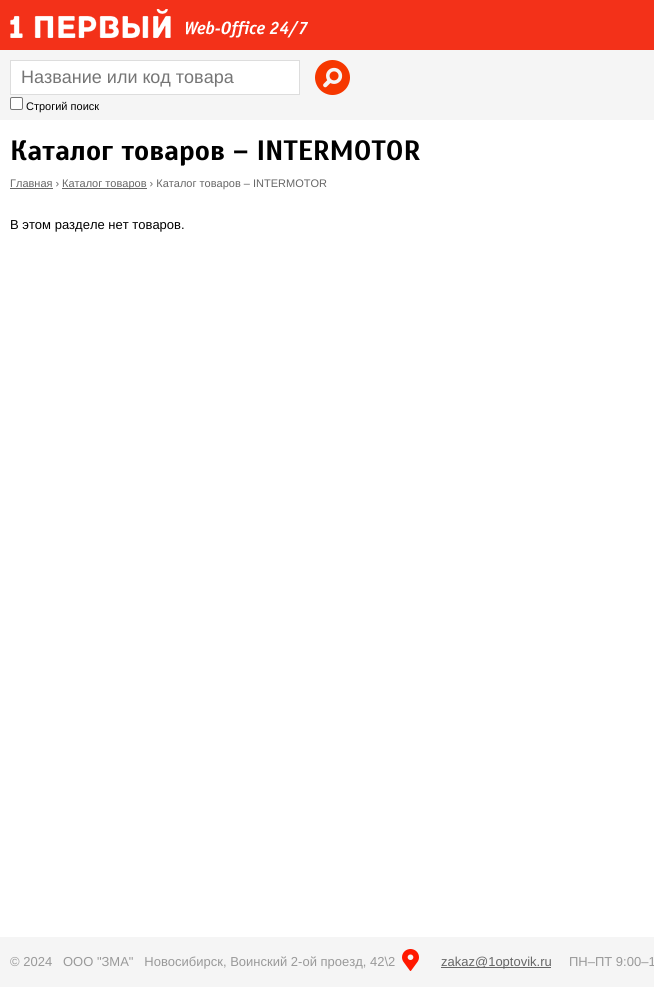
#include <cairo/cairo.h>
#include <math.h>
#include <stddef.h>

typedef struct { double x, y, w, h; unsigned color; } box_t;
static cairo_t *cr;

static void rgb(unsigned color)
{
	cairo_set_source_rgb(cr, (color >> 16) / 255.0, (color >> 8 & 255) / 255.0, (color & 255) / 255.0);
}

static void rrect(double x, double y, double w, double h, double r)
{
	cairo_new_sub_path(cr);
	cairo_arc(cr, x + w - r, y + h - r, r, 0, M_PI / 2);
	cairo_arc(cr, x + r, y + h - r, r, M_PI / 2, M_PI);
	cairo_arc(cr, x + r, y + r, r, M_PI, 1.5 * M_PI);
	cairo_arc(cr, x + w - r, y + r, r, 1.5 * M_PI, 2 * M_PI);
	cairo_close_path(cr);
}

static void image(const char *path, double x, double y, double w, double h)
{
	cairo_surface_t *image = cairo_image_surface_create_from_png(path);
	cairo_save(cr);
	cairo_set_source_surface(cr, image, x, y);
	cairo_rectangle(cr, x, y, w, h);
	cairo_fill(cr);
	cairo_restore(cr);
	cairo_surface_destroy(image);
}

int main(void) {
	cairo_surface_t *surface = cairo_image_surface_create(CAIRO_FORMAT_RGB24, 654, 987);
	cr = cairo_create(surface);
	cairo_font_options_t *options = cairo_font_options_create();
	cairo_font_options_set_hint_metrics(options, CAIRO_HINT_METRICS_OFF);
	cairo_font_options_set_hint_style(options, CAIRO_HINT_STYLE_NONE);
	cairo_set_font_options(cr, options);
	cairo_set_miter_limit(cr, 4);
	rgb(0xffffff);
	cairo_paint(cr);
	image("img/1.png", 0, 0, 654, 120);
	image("img/2.png", 10, 9, 298, 29);
	rgb(0xffffff);
	cairo_rectangle(cr, 10.5, 60.5, 289, 34);
	cairo_fill_preserve(cr);
	rgb(0xdddddd);
	cairo_set_line_width(cr, 1);
	cairo_stroke(cr);
	image("img/3.png", 315, 60, 35, 35);
	rgb(0xffffff);
	rrect(10.5, 97.5, 12, 12, 1.5);
	cairo_fill_preserve(cr);
	rgb(0x767676);
	cairo_stroke(cr);
	{
		static const box_t items[] = {
			{10, 188, 43, 1, 0x666666},
			{62, 188, 85, 1, 0x666666},
			{0, 937, 654, 50, 0xf5f5f5},
		};
		for (size_t i = 0; i < sizeof items / sizeof *items; i++) {
			rgb(items[i].color);
			cairo_rectangle(cr, items[i].x, items[i].y, items[i].w, items[i].h);
			cairo_fill(cr);
		}
	}
	image("img/4.png", 402, 949, 17, 22);
	rgb(0x666666);
	cairo_rectangle(cr, 441, 967, 110, 1);
	cairo_fill(cr);
	cairo_select_font_face(cr, "Liberation Sans", CAIRO_FONT_SLANT_NORMAL, CAIRO_FONT_WEIGHT_NORMAL);
	cairo_set_font_size(cr, 18);
	rgb(0x757575);
	cairo_move_to(cr, 21, 83);
	cairo_show_text(cr, "Название или код товара");
	cairo_set_font_size(cr, 11);
	rgb(0x000000);
	cairo_move_to(cr, 26, 110);
	cairo_show_text(cr, "Строгий поиск");
	cairo_select_font_face(cr, "Scada", CAIRO_FONT_SLANT_NORMAL, CAIRO_FONT_WEIGHT_BOLD);
	cairo_set_font_size(cr, 28);
	cairo_move_to(cr, 10, 160);
	cairo_show_text(cr, "Каталог товаров – INTERMOTOR");
	cairo_select_font_face(cr, "Liberation Sans", CAIRO_FONT_SLANT_NORMAL, CAIRO_FONT_WEIGHT_NORMAL);
	cairo_set_font_size(cr, 11);
	rgb(0x666666);
	cairo_move_to(cr, 10, 187);
	cairo_show_text(cr, "Главная ›");
	cairo_move_to(cr, 62, 187);
	cairo_show_text(cr, "Каталог товаров › Каталог товаров – INTERMOTOR");
	cairo_set_font_size(cr, 13);
	rgb(0x000000);
	cairo_move_to(cr, 10, 229);
	cairo_show_text(cr, "В этом разделе нет товаров.");
	rgb(0x999999);
	cairo_move_to(cr, 10, 966);
	cairo_show_text(cr, "© 2024   ООО \"ЗМА\"   Новосибирск, Воинский 2-ой проезд, 42\\2");
	rgb(0x666666);
	cairo_move_to(cr, 441, 966);
	cairo_show_text(cr, "zakaz@1optovik.ru");
	rgb(0x999999);
	cairo_move_to(cr, 569, 966);
	cairo_show_text(cr, "ПН–ПТ 9:00–1");
	cairo_surface_write_to_png(surface, "page.png");
	cairo_font_options_destroy(options);
	cairo_destroy(cr);
	cairo_surface_destroy(surface);
	return 0;
}
